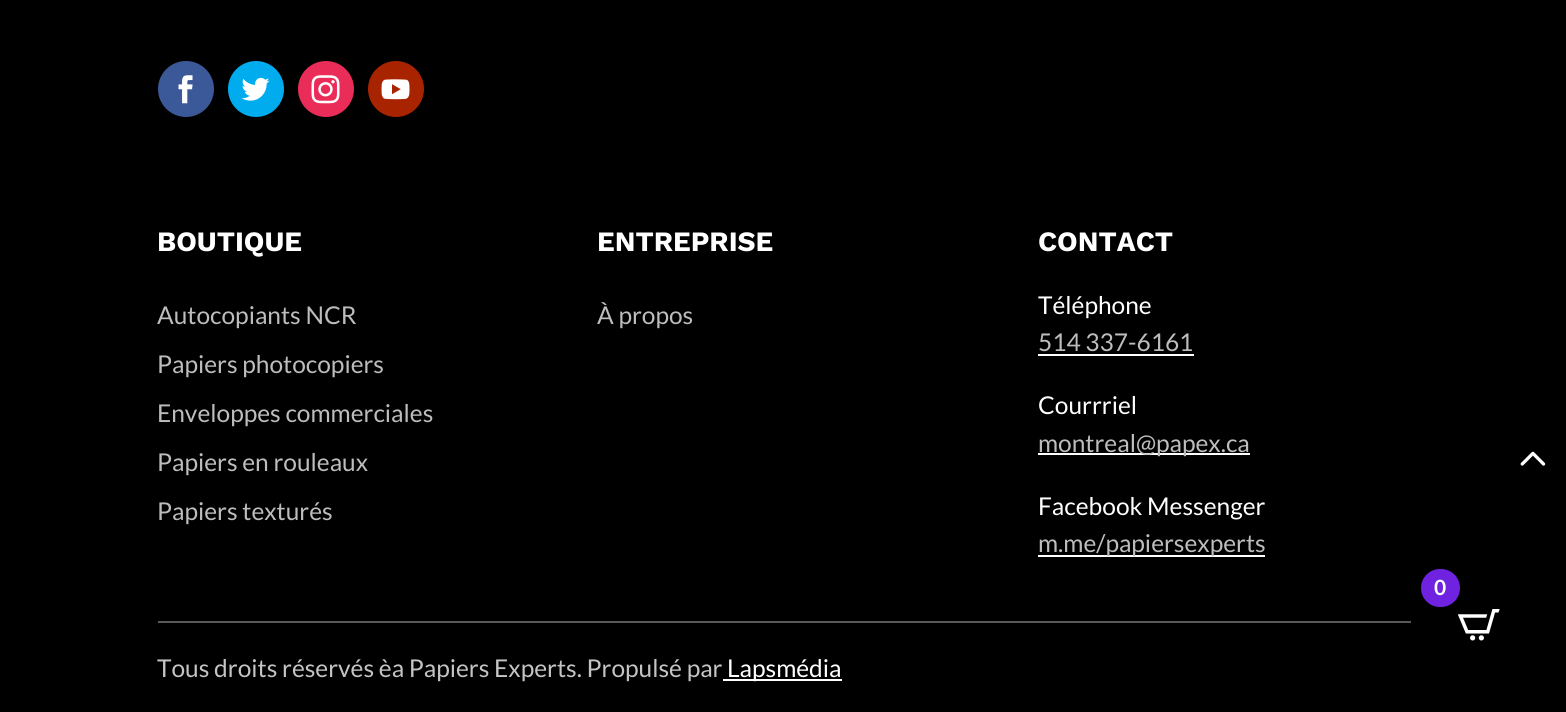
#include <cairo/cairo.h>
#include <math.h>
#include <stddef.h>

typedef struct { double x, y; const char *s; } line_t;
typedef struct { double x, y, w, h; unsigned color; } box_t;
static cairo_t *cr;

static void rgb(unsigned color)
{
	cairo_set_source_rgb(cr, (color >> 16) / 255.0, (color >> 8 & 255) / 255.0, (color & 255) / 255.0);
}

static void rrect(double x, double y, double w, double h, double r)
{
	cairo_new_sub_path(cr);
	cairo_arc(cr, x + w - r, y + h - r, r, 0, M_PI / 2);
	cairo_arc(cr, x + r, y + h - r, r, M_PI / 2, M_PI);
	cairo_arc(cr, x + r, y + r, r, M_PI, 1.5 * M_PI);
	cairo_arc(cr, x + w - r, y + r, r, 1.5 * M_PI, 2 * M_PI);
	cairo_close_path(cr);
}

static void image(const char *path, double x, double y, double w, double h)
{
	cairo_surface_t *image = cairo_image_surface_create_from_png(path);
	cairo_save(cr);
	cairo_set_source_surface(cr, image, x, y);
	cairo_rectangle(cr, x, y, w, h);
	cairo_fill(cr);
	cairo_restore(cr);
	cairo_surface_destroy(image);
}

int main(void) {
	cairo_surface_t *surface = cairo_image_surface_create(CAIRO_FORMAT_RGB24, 1566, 712);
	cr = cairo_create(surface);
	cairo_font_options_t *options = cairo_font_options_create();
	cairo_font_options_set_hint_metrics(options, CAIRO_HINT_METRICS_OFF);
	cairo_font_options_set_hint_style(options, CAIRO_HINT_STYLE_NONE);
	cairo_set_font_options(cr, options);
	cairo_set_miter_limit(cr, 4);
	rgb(0x000000);
	cairo_paint(cr);
	rgb(0x3b5998);
	cairo_arc(cr, 186, 89, 28, 0, 2 * M_PI);
	cairo_fill(cr);
	image("img/1.png", 178, 75, 15, 29);
	rgb(0x00aced);
	cairo_arc(cr, 256, 89, 28, 0, 2 * M_PI);
	cairo_fill(cr);
	image("img/2.png", 241, 77, 29, 24);
	rgb(0xea2c59);
	cairo_arc(cr, 326, 89, 28, 0, 2 * M_PI);
	cairo_fill(cr);
	image("img/3.png", 311, 75, 29, 29);
	rgb(0xa82400);
	cairo_arc(cr, 396, 89, 28, 0, 2 * M_PI);
	cairo_fill(cr);
	image("img/4.png", 381, 79, 29, 21);
	{
		static const box_t items[] = {
			{1038, 354, 156, 2, 0xffffff},
			{1038, 453, 212, 2, 0xffffff},
			{1038, 555, 227, 2, 0xffffff},
			{158, 621, 1253, 2, 0x595959},
			{723, 679, 119, 2, 0xffffff},
		};
		for (size_t i = 0; i < sizeof items / sizeof *items; i++) {
			rgb(items[i].color);
			cairo_rectangle(cr, items[i].x, items[i].y, items[i].w, items[i].h);
			cairo_fill(cr);
		}
	}
	image("img/5.png", 1520, 451, 26, 15);
	rgb(0x6f23e1);
	rrect(1421, 569, 39, 38, 19);
	cairo_fill(cr);
	image("img/6.png", 1458, 609, 42, 32);
	cairo_select_font_face(cr, "Work Sans", CAIRO_FONT_SLANT_NORMAL, CAIRO_FONT_WEIGHT_BOLD);
	cairo_set_font_size(cr, 28);
	rgb(0xffffff);
	cairo_move_to(cr, 157, 251);
	cairo_show_text(cr, "BOUTIQUE");
	cairo_select_font_face(cr, "Lato", CAIRO_FONT_SLANT_NORMAL, CAIRO_FONT_WEIGHT_NORMAL);
	cairo_set_font_size(cr, 24.5);
	rgb(0xbdbdbd);
	{
		static const line_t items[] = {
			{157, 324, "Autocopiants NCR"},
			{157, 373, "Papiers photocopiers"},
			{157, 422, "Enveloppes commerciales"},
			{157, 471, "Papiers en rouleaux"},
			{157, 520, "Papiers texturés"},
		};
		for (size_t i = 0; i < sizeof items / sizeof *items; i++) {
			cairo_move_to(cr, items[i].x, items[i].y);
			cairo_show_text(cr, items[i].s);
		}
	}
	cairo_select_font_face(cr, "Work Sans", CAIRO_FONT_SLANT_NORMAL, CAIRO_FONT_WEIGHT_BOLD);
	cairo_set_font_size(cr, 28);
	rgb(0xffffff);
	cairo_move_to(cr, 597, 251);
	cairo_show_text(cr, "ENTREPRISE");
	cairo_select_font_face(cr, "Lato", CAIRO_FONT_SLANT_NORMAL, CAIRO_FONT_WEIGHT_NORMAL);
	cairo_set_font_size(cr, 24.5);
	rgb(0xbdbdbd);
	cairo_move_to(cr, 597, 324);
	cairo_show_text(cr, "À propos");
	cairo_select_font_face(cr, "Work Sans", CAIRO_FONT_SLANT_NORMAL, CAIRO_FONT_WEIGHT_BOLD);
	cairo_set_font_size(cr, 28);
	rgb(0xffffff);
	cairo_move_to(cr, 1038, 251);
	cairo_show_text(cr, "CONTACT");
	cairo_select_font_face(cr, "Lato", CAIRO_FONT_SLANT_NORMAL, CAIRO_FONT_WEIGHT_NORMAL);
	cairo_set_font_size(cr, 24.5);
	cairo_move_to(cr, 1038, 314);
	cairo_show_text(cr, "Téléphone");
	rgb(0xbdbdbd);
	cairo_move_to(cr, 1038, 351);
	cairo_show_text(cr, "514 337-6161");
	rgb(0xffffff);
	cairo_move_to(cr, 1038, 414);
	cairo_show_text(cr, "Courrriel");
	rgb(0xbdbdbd);
	cairo_move_to(cr, 1038, 452);
	cairo_show_text(cr, "montreal@papex.ca");
	rgb(0xffffff);
	cairo_move_to(cr, 1038, 515);
	cairo_show_text(cr, "Facebook Messenger");
	rgb(0xbdbdbd);
	cairo_move_to(cr, 1038, 552);
	cairo_show_text(cr, "m.me/papiersexperts");
	rgb(0xc4c4c4);
	cairo_move_to(cr, 157, 677);
	cairo_show_text(cr, "Tous droits réservés èa Papiers Experts. Propulsé par");
	rgb(0xffffff);
	cairo_move_to(cr, 727, 677);
	cairo_show_text(cr, "Lapsmédia");
	cairo_select_font_face(cr, "Lato", CAIRO_FONT_SLANT_NORMAL, CAIRO_FONT_WEIGHT_BOLD);
	cairo_set_font_size(cr, 21);
	cairo_move_to(cr, 1434, 595);
	cairo_show_text(cr, "0");
	cairo_surface_write_to_png(surface, "page.png");
	cairo_font_options_destroy(options);
	cairo_destroy(cr);
	cairo_surface_destroy(surface);
	return 0;
}
